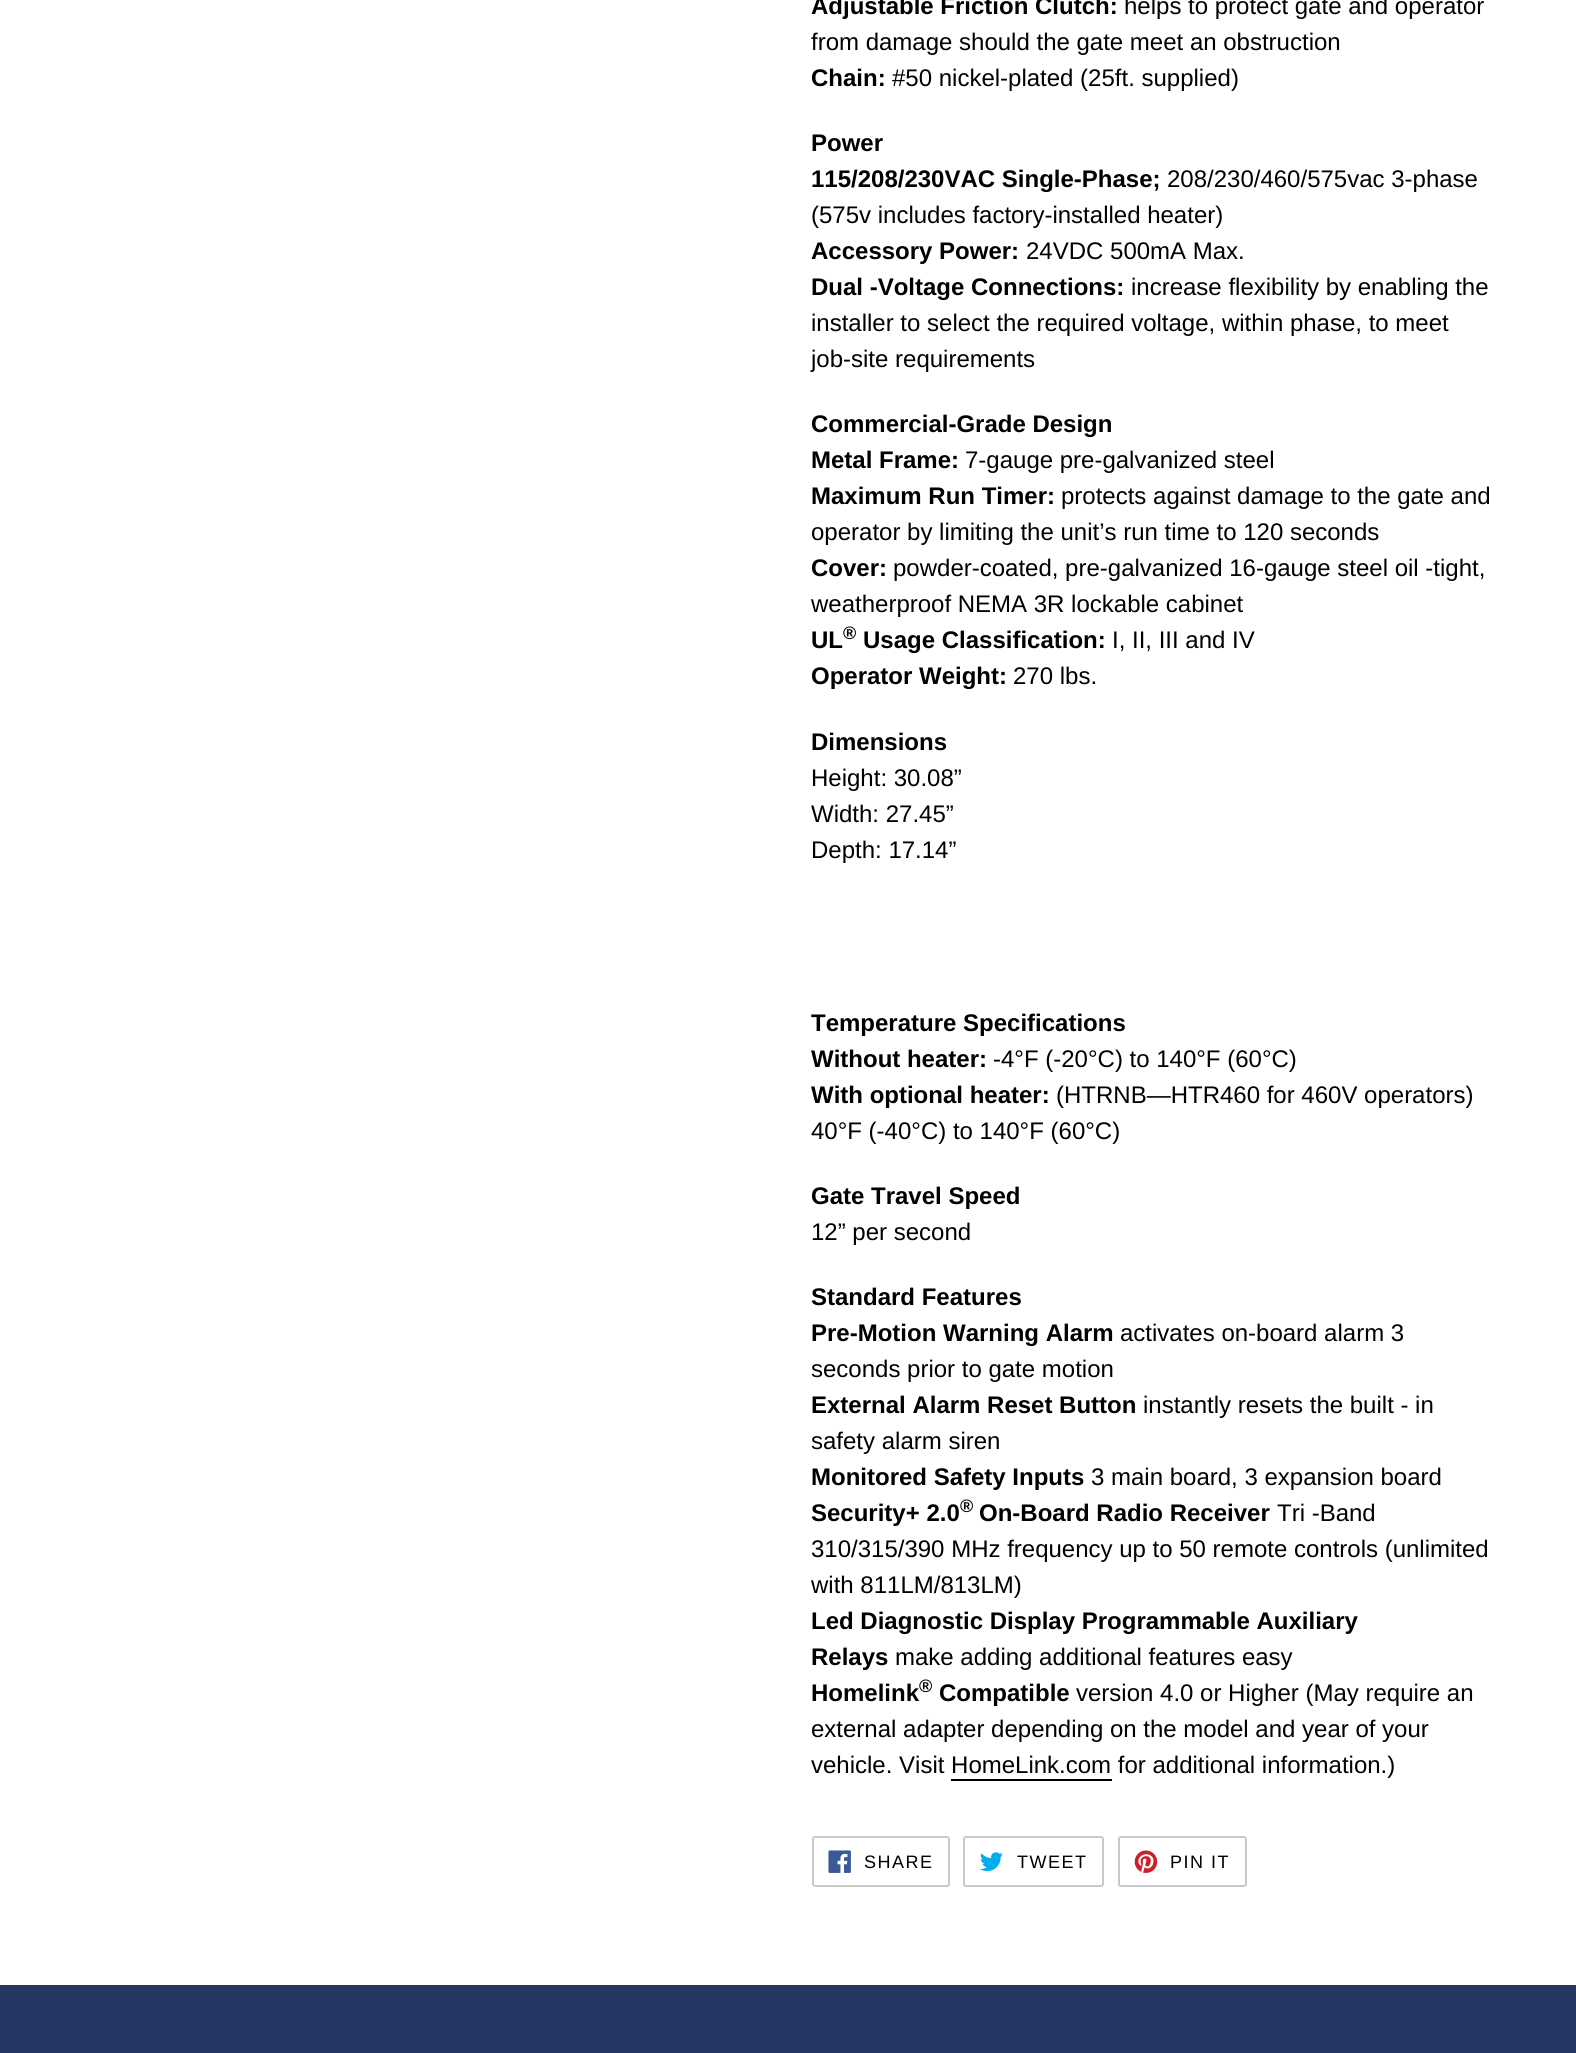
#include <cairo/cairo.h>
#include <math.h>
#include <stddef.h>

typedef struct { double x, y; const char *s; } line_t;
static cairo_t *cr;

static void rgb(unsigned color)
{
	cairo_set_source_rgb(cr, (color >> 16) / 255.0, (color >> 8 & 255) / 255.0, (color & 255) / 255.0);
}

static void tracked(double x, double y, const char *s, double letter, double word)
{
	cairo_move_to(cr, x, y);
	while (*s) {
		char ch[5] = {0};
		int n = 0;
		do ch[n++] = *s++; while ((*s & 0xC0) == 0x80);
		cairo_show_text(cr, ch);
		cairo_rel_move_to(cr, letter + word * (*ch == ' '), 0);
	}
}

static void rrect(double x, double y, double w, double h, double r)
{
	cairo_new_sub_path(cr);
	cairo_arc(cr, x + w - r, y + h - r, r, 0, M_PI / 2);
	cairo_arc(cr, x + r, y + h - r, r, M_PI / 2, M_PI);
	cairo_arc(cr, x + r, y + r, r, M_PI, 1.5 * M_PI);
	cairo_arc(cr, x + w - r, y + r, r, 1.5 * M_PI, 2 * M_PI);
	cairo_close_path(cr);
}

static void image(const char *path, double x, double y, double w, double h)
{
	cairo_surface_t *image = cairo_image_surface_create_from_png(path);
	cairo_save(cr);
	cairo_set_source_surface(cr, image, x, y);
	cairo_rectangle(cr, x, y, w, h);
	cairo_fill(cr);
	cairo_restore(cr);
	cairo_surface_destroy(image);
}

int main(void) {
	cairo_surface_t *surface = cairo_image_surface_create(CAIRO_FORMAT_RGB24, 1576, 2053);
	cr = cairo_create(surface);
	cairo_font_options_t *options = cairo_font_options_create();
	cairo_font_options_set_hint_metrics(options, CAIRO_HINT_METRICS_OFF);
	cairo_font_options_set_hint_style(options, CAIRO_HINT_STYLE_NONE);
	cairo_set_font_options(cr, options);
	cairo_set_miter_limit(cr, 4);
	rgb(0xffffff);
	cairo_paint(cr);
	rgb(0x000000);
	cairo_rectangle(cr, 951, 1779, 161, 2);
	cairo_fill(cr);
	rrect(813, 1837, 136, 49, 2);
	rgb(0xc9c9c9);
	cairo_stroke(cr);
	image("img/1.png", 828, 1850, 23, 23);
	rrect(964, 1837, 139, 49, 2);
	cairo_stroke(cr);
	image("img/2.png", 980, 1852, 23, 20);
	rrect(1119, 1837, 127, 49, 2);
	cairo_stroke(cr);
	image("img/3.png", 1134, 1850, 24, 23);
	rgb(0x253864);
	cairo_rectangle(cr, 0, 1985, 1576, 68);
	cairo_fill(cr);
	cairo_select_font_face(cr, "Liberation Sans", CAIRO_FONT_SLANT_NORMAL, CAIRO_FONT_WEIGHT_BOLD);
	cairo_set_font_size(cr, 24);
	rgb(0x000000);
	cairo_move_to(cr, 811, 14);
	cairo_show_text(cr, "Adjustable Friction Clutch:");
	cairo_select_font_face(cr, "Liberation Sans", CAIRO_FONT_SLANT_NORMAL, CAIRO_FONT_WEIGHT_NORMAL);
	cairo_move_to(cr, 1124, 14);
	cairo_show_text(cr, "helps to protect gate and operator");
	cairo_move_to(cr, 811, 50);
	cairo_show_text(cr, "from damage should the gate meet an obstruction");
	cairo_select_font_face(cr, "Liberation Sans", CAIRO_FONT_SLANT_NORMAL, CAIRO_FONT_WEIGHT_BOLD);
	cairo_move_to(cr, 811, 86);
	cairo_show_text(cr, "Chain:");
	cairo_select_font_face(cr, "Liberation Sans", CAIRO_FONT_SLANT_NORMAL, CAIRO_FONT_WEIGHT_NORMAL);
	cairo_move_to(cr, 892, 86);
	cairo_show_text(cr, "#50 nickel-plated (25ft. supplied)");
	cairo_select_font_face(cr, "Liberation Sans", CAIRO_FONT_SLANT_NORMAL, CAIRO_FONT_WEIGHT_BOLD);
	cairo_move_to(cr, 811, 151);
	cairo_show_text(cr, "Power");
	cairo_move_to(cr, 811, 187);
	cairo_show_text(cr, "115/208/230VAC Single-Phase;");
	cairo_select_font_face(cr, "Liberation Sans", CAIRO_FONT_SLANT_NORMAL, CAIRO_FONT_WEIGHT_NORMAL);
	cairo_move_to(cr, 1167, 187);
	cairo_show_text(cr, "208/230/460/575vac 3-phase");
	cairo_move_to(cr, 811, 223);
	cairo_show_text(cr, "(575v includes factory-installed heater)");
	cairo_select_font_face(cr, "Liberation Sans", CAIRO_FONT_SLANT_NORMAL, CAIRO_FONT_WEIGHT_BOLD);
	cairo_move_to(cr, 811, 259);
	cairo_show_text(cr, "Accessory Power:");
	cairo_select_font_face(cr, "Liberation Sans", CAIRO_FONT_SLANT_NORMAL, CAIRO_FONT_WEIGHT_NORMAL);
	cairo_move_to(cr, 1026, 259);
	cairo_show_text(cr, "24VDC 500mA Max.");
	cairo_select_font_face(cr, "Liberation Sans", CAIRO_FONT_SLANT_NORMAL, CAIRO_FONT_WEIGHT_BOLD);
	cairo_move_to(cr, 811, 295);
	cairo_show_text(cr, "Dual -Voltage Connections:");
	cairo_select_font_face(cr, "Liberation Sans", CAIRO_FONT_SLANT_NORMAL, CAIRO_FONT_WEIGHT_NORMAL);
	{
		static const line_t items[] = {
			{1131, 295, "increase flexibility by enabling the"},
			{811, 331, "installer to select the required voltage, within phase, to meet"},
			{811, 367, "job-site requirements"},
		};
		for (size_t i = 0; i < sizeof items / sizeof *items; i++) {
			cairo_move_to(cr, items[i].x, items[i].y);
			cairo_show_text(cr, items[i].s);
		}
	}
	cairo_select_font_face(cr, "Liberation Sans", CAIRO_FONT_SLANT_NORMAL, CAIRO_FONT_WEIGHT_BOLD);
	cairo_move_to(cr, 811, 432);
	cairo_show_text(cr, "Commercial-Grade Design");
	cairo_move_to(cr, 811, 468);
	cairo_show_text(cr, "Metal Frame:");
	cairo_select_font_face(cr, "Liberation Sans", CAIRO_FONT_SLANT_NORMAL, CAIRO_FONT_WEIGHT_NORMAL);
	cairo_move_to(cr, 965, 468);
	cairo_show_text(cr, "7-gauge pre-galvanized steel");
	cairo_select_font_face(cr, "Liberation Sans", CAIRO_FONT_SLANT_NORMAL, CAIRO_FONT_WEIGHT_BOLD);
	cairo_move_to(cr, 811, 504);
	cairo_show_text(cr, "Maximum Run Timer:");
	cairo_select_font_face(cr, "Liberation Sans", CAIRO_FONT_SLANT_NORMAL, CAIRO_FONT_WEIGHT_NORMAL);
	cairo_move_to(cr, 1061, 504);
	cairo_show_text(cr, "protects against damage to the gate and");
	cairo_move_to(cr, 811, 540);
	cairo_show_text(cr, "operator by limiting the unit’s run time to 120 seconds");
	cairo_select_font_face(cr, "Liberation Sans", CAIRO_FONT_SLANT_NORMAL, CAIRO_FONT_WEIGHT_BOLD);
	cairo_move_to(cr, 811, 576);
	cairo_show_text(cr, "Cover:");
	cairo_select_font_face(cr, "Liberation Sans", CAIRO_FONT_SLANT_NORMAL, CAIRO_FONT_WEIGHT_NORMAL);
	cairo_move_to(cr, 893, 576);
	cairo_show_text(cr, "powder-coated, pre-galvanized 16-gauge steel oil -tight,");
	cairo_move_to(cr, 811, 612);
	cairo_show_text(cr, "weatherproof NEMA 3R lockable cabinet");
	cairo_select_font_face(cr, "Liberation Sans", CAIRO_FONT_SLANT_NORMAL, CAIRO_FONT_WEIGHT_BOLD);
	cairo_move_to(cr, 811, 648);
	cairo_show_text(cr, "UL");
	cairo_set_font_size(cr, 18);
	cairo_move_to(cr, 843, 639);
	cairo_show_text(cr, "®");
	cairo_set_font_size(cr, 24);
	cairo_move_to(cr, 863, 648);
	cairo_show_text(cr, "Usage Classification:");
	cairo_select_font_face(cr, "Liberation Sans", CAIRO_FONT_SLANT_NORMAL, CAIRO_FONT_WEIGHT_NORMAL);
	cairo_move_to(cr, 1112, 648);
	cairo_show_text(cr, "I, II, III and IV");
	cairo_select_font_face(cr, "Liberation Sans", CAIRO_FONT_SLANT_NORMAL, CAIRO_FONT_WEIGHT_BOLD);
	cairo_move_to(cr, 811, 684);
	cairo_show_text(cr, "Operator Weight:");
	cairo_select_font_face(cr, "Liberation Sans", CAIRO_FONT_SLANT_NORMAL, CAIRO_FONT_WEIGHT_NORMAL);
	cairo_move_to(cr, 1013, 684);
	cairo_show_text(cr, "270 lbs.");
	cairo_select_font_face(cr, "Liberation Sans", CAIRO_FONT_SLANT_NORMAL, CAIRO_FONT_WEIGHT_BOLD);
	cairo_move_to(cr, 811, 750);
	cairo_show_text(cr, "Dimensions");
	cairo_select_font_face(cr, "Liberation Sans", CAIRO_FONT_SLANT_NORMAL, CAIRO_FONT_WEIGHT_NORMAL);
	{
		static const line_t items[] = {
			{811, 786, "Height: 30.08”"},
			{811, 822, "Width: 27.45”"},
			{811, 858, "Depth: 17.14”"},
		};
		for (size_t i = 0; i < sizeof items / sizeof *items; i++) {
			cairo_move_to(cr, items[i].x, items[i].y);
			cairo_show_text(cr, items[i].s);
		}
	}
	cairo_select_font_face(cr, "Liberation Sans", CAIRO_FONT_SLANT_NORMAL, CAIRO_FONT_WEIGHT_BOLD);
	cairo_move_to(cr, 811, 1031);
	cairo_show_text(cr, "Temperature Specifications");
	cairo_move_to(cr, 811, 1067);
	cairo_show_text(cr, "Without heater:");
	cairo_select_font_face(cr, "Liberation Sans", CAIRO_FONT_SLANT_NORMAL, CAIRO_FONT_WEIGHT_NORMAL);
	cairo_move_to(cr, 993, 1067);
	cairo_show_text(cr, "-4°F (-20°C) to 140°F (60°C)");
	cairo_select_font_face(cr, "Liberation Sans", CAIRO_FONT_SLANT_NORMAL, CAIRO_FONT_WEIGHT_BOLD);
	cairo_move_to(cr, 811, 1103);
	cairo_show_text(cr, "With optional heater:");
	cairo_select_font_face(cr, "Liberation Sans", CAIRO_FONT_SLANT_NORMAL, CAIRO_FONT_WEIGHT_NORMAL);
	cairo_move_to(cr, 1056, 1103);
	cairo_show_text(cr, "(HTRNB—HTR460 for 460V operators)");
	cairo_move_to(cr, 811, 1139);
	cairo_show_text(cr, "40°F (-40°C) to 140°F (60°C)");
	cairo_select_font_face(cr, "Liberation Sans", CAIRO_FONT_SLANT_NORMAL, CAIRO_FONT_WEIGHT_BOLD);
	cairo_move_to(cr, 811, 1204);
	cairo_show_text(cr, "Gate Travel Speed");
	cairo_select_font_face(cr, "Liberation Sans", CAIRO_FONT_SLANT_NORMAL, CAIRO_FONT_WEIGHT_NORMAL);
	cairo_move_to(cr, 811, 1240);
	cairo_show_text(cr, "12” per second");
	cairo_select_font_face(cr, "Liberation Sans", CAIRO_FONT_SLANT_NORMAL, CAIRO_FONT_WEIGHT_BOLD);
	cairo_move_to(cr, 811, 1305);
	cairo_show_text(cr, "Standard Features");
	cairo_move_to(cr, 811, 1341);
	cairo_show_text(cr, "Pre-Motion Warning Alarm");
	cairo_select_font_face(cr, "Liberation Sans", CAIRO_FONT_SLANT_NORMAL, CAIRO_FONT_WEIGHT_NORMAL);
	cairo_move_to(cr, 1120, 1341);
	cairo_show_text(cr, "activates on-board alarm 3");
	cairo_move_to(cr, 811, 1377);
	cairo_show_text(cr, "seconds prior to gate motion");
	cairo_select_font_face(cr, "Liberation Sans", CAIRO_FONT_SLANT_NORMAL, CAIRO_FONT_WEIGHT_BOLD);
	cairo_move_to(cr, 811, 1413);
	cairo_show_text(cr, "External Alarm Reset Button");
	cairo_select_font_face(cr, "Liberation Sans", CAIRO_FONT_SLANT_NORMAL, CAIRO_FONT_WEIGHT_NORMAL);
	cairo_move_to(cr, 1143, 1413);
	cairo_show_text(cr, "instantly resets the built - in");
	cairo_move_to(cr, 811, 1449);
	cairo_show_text(cr, "safety alarm siren");
	cairo_select_font_face(cr, "Liberation Sans", CAIRO_FONT_SLANT_NORMAL, CAIRO_FONT_WEIGHT_BOLD);
	cairo_move_to(cr, 811, 1485);
	cairo_show_text(cr, "Monitored Safety Inputs");
	cairo_select_font_face(cr, "Liberation Sans", CAIRO_FONT_SLANT_NORMAL, CAIRO_FONT_WEIGHT_NORMAL);
	cairo_move_to(cr, 1091, 1485);
	cairo_show_text(cr, "3 main board, 3 expansion board");
	cairo_select_font_face(cr, "Liberation Sans", CAIRO_FONT_SLANT_NORMAL, CAIRO_FONT_WEIGHT_BOLD);
	cairo_move_to(cr, 811, 1521);
	cairo_show_text(cr, "Security+ 2.0");
	cairo_set_font_size(cr, 18);
	cairo_move_to(cr, 960, 1512);
	cairo_show_text(cr, "®");
	cairo_set_font_size(cr, 24);
	cairo_move_to(cr, 979, 1521);
	cairo_show_text(cr, "On-Board Radio Receiver");
	cairo_select_font_face(cr, "Liberation Sans", CAIRO_FONT_SLANT_NORMAL, CAIRO_FONT_WEIGHT_NORMAL);
	{
		static const line_t items[] = {
			{1277, 1521, "Tri -Band"},
			{811, 1557, "310/315/390 MHz frequency up to 50 remote controls (unlimited"},
			{811, 1593, "with 811LM/813LM)"},
		};
		for (size_t i = 0; i < sizeof items / sizeof *items; i++) {
			cairo_move_to(cr, items[i].x, items[i].y);
			cairo_show_text(cr, items[i].s);
		}
	}
	cairo_select_font_face(cr, "Liberation Sans", CAIRO_FONT_SLANT_NORMAL, CAIRO_FONT_WEIGHT_BOLD);
	cairo_move_to(cr, 811, 1629);
	cairo_show_text(cr, "Led Diagnostic Display Programmable Auxiliary");
	cairo_move_to(cr, 811, 1665);
	cairo_show_text(cr, "Relays");
	cairo_select_font_face(cr, "Liberation Sans", CAIRO_FONT_SLANT_NORMAL, CAIRO_FONT_WEIGHT_NORMAL);
	cairo_move_to(cr, 895, 1665);
	cairo_show_text(cr, "make adding additional features easy");
	cairo_select_font_face(cr, "Liberation Sans", CAIRO_FONT_SLANT_NORMAL, CAIRO_FONT_WEIGHT_BOLD);
	cairo_move_to(cr, 811, 1701);
	cairo_show_text(cr, "Homelink");
	cairo_set_font_size(cr, 18);
	cairo_move_to(cr, 919, 1692);
	cairo_show_text(cr, "®");
	cairo_set_font_size(cr, 24);
	cairo_move_to(cr, 939, 1701);
	cairo_show_text(cr, "Compatible");
	cairo_select_font_face(cr, "Liberation Sans", CAIRO_FONT_SLANT_NORMAL, CAIRO_FONT_WEIGHT_NORMAL);
	{
		static const line_t items[] = {
			{1076, 1701, "version 4.0 or Higher (May require an"},
			{811, 1737, "external adapter depending on the model and year of your"},
			{811, 1773, "vehicle. Visit HomeLink.com for additional information.)"},
		};
		for (size_t i = 0; i < sizeof items / sizeof *items; i++) {
			cairo_move_to(cr, items[i].x, items[i].y);
			cairo_show_text(cr, items[i].s);
		}
	}
	cairo_set_font_size(cr, 18);
	{
		static const line_t items[] = {
			{864, 1868, "SHARE"},
			{1017, 1868, "TWEET"},
			{1170, 1868, "PIN IT"},
		};
		for (size_t i = 0; i < sizeof items / sizeof *items; i++) {
			tracked(items[i].x, items[i].y, items[i].s, 1.5, 0);
		}
	}
	cairo_surface_write_to_png(surface, "page.png");
	cairo_font_options_destroy(options);
	cairo_destroy(cr);
	cairo_surface_destroy(surface);
	return 0;
}
